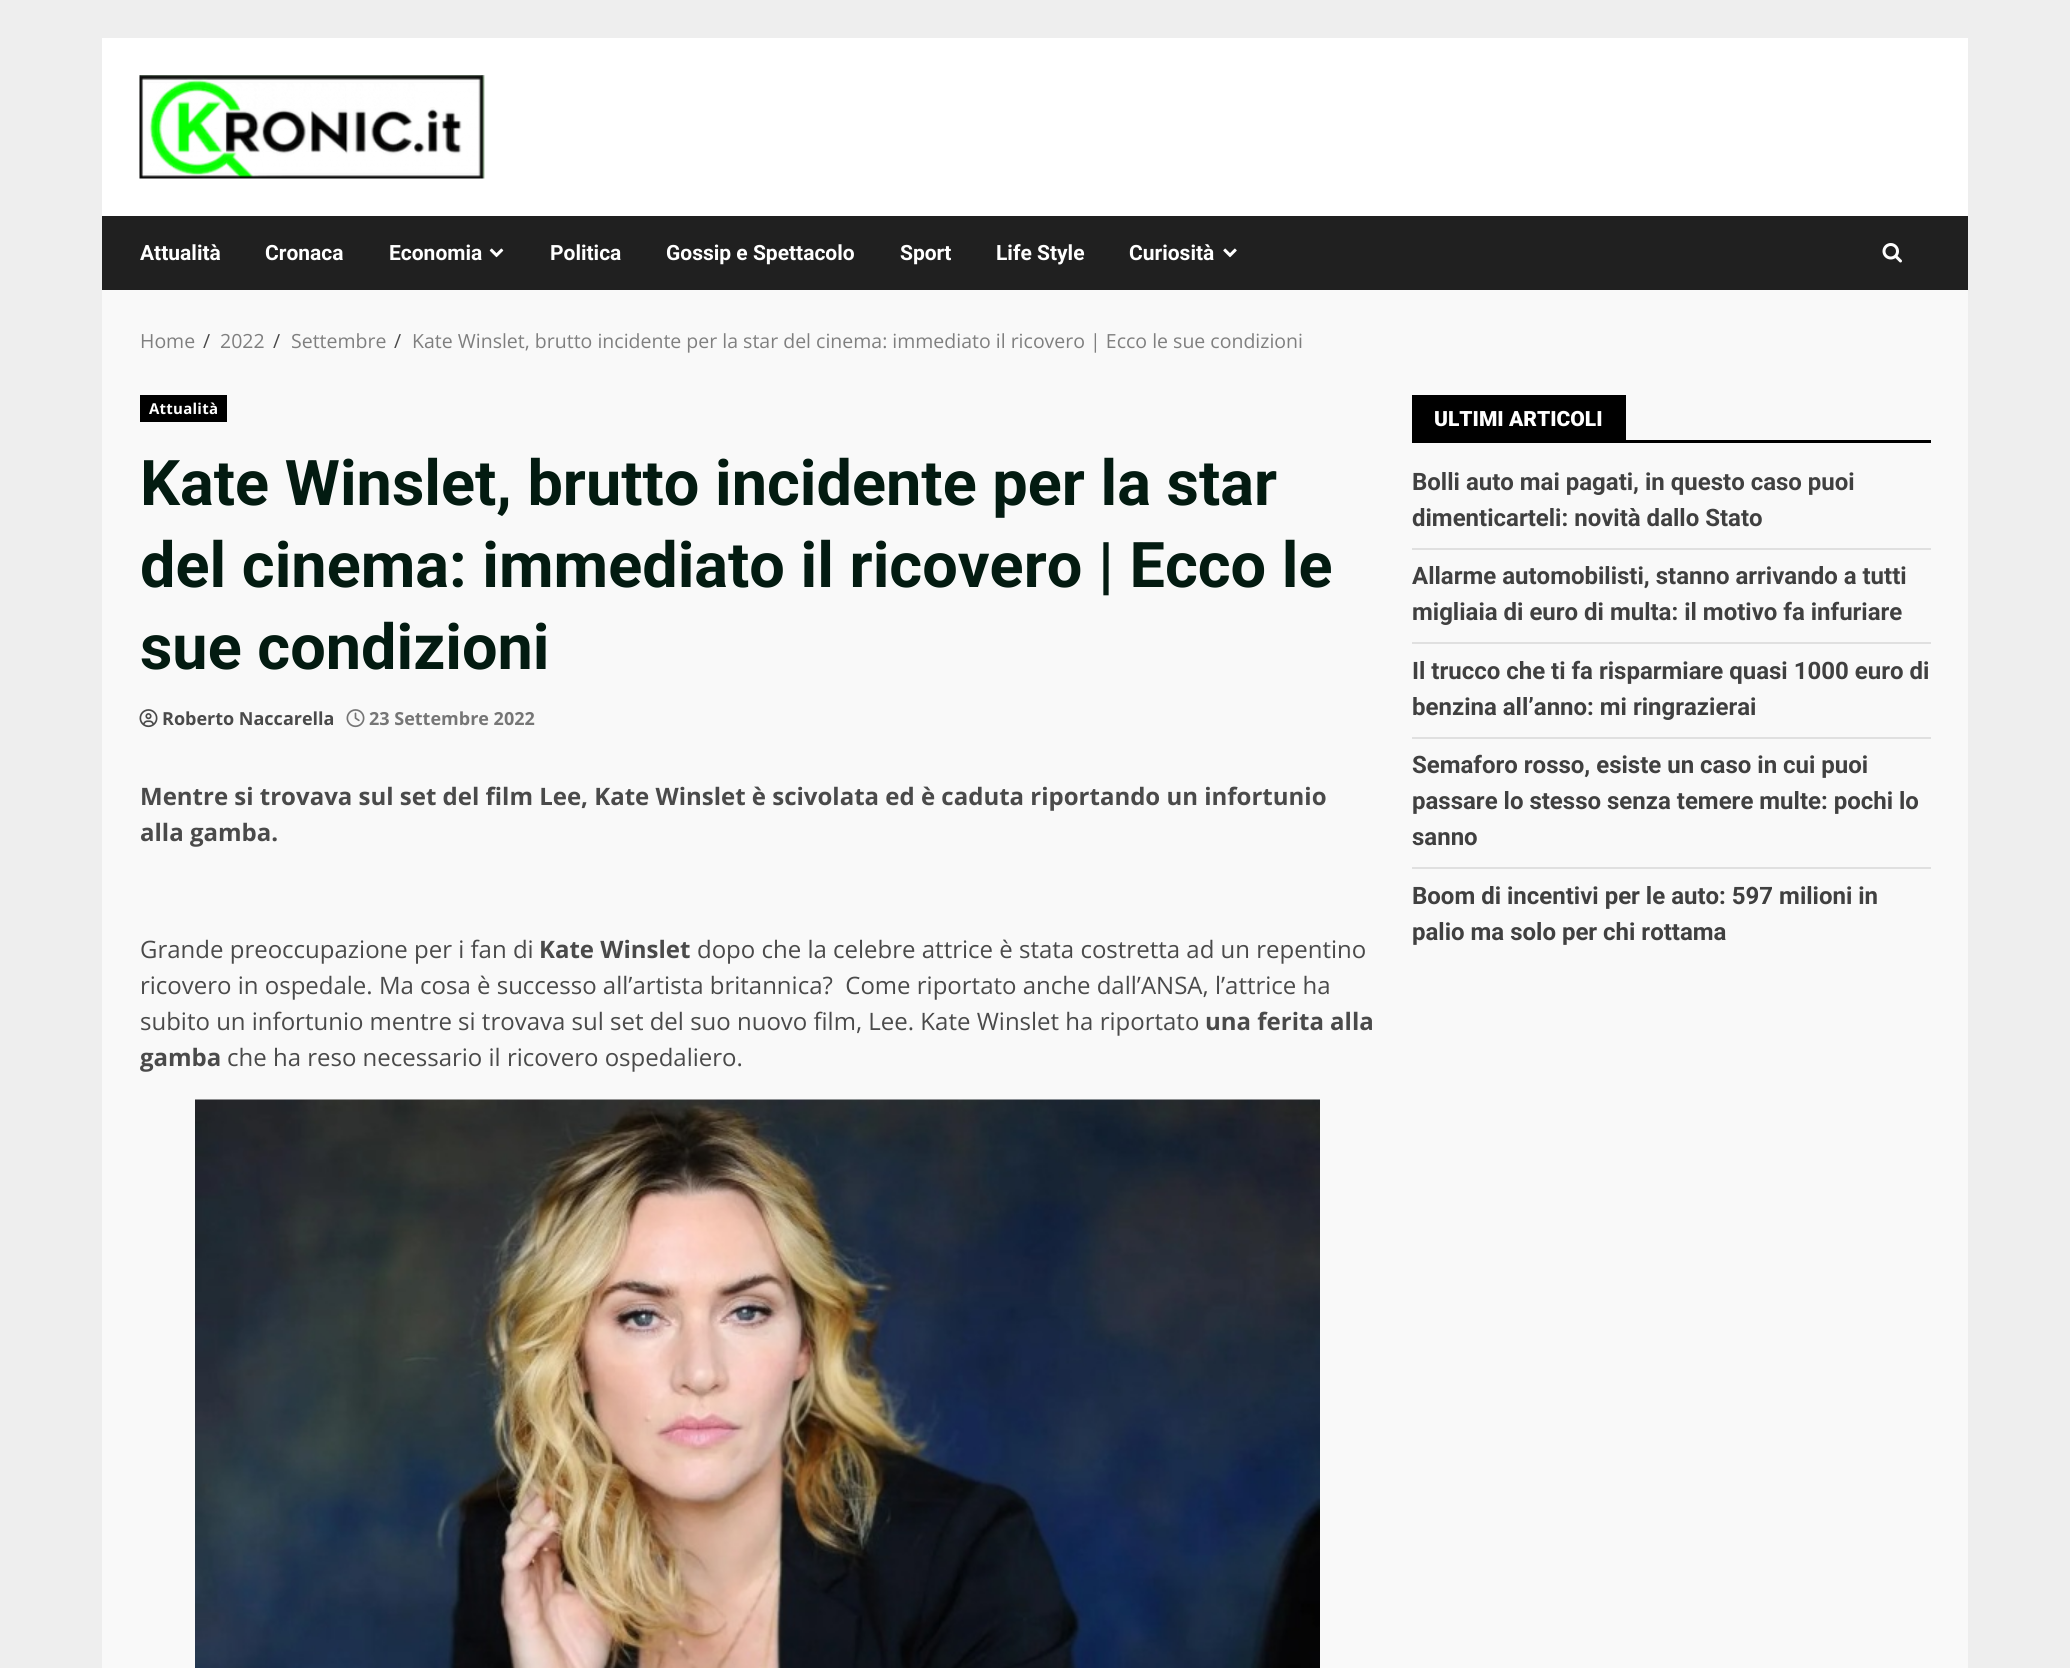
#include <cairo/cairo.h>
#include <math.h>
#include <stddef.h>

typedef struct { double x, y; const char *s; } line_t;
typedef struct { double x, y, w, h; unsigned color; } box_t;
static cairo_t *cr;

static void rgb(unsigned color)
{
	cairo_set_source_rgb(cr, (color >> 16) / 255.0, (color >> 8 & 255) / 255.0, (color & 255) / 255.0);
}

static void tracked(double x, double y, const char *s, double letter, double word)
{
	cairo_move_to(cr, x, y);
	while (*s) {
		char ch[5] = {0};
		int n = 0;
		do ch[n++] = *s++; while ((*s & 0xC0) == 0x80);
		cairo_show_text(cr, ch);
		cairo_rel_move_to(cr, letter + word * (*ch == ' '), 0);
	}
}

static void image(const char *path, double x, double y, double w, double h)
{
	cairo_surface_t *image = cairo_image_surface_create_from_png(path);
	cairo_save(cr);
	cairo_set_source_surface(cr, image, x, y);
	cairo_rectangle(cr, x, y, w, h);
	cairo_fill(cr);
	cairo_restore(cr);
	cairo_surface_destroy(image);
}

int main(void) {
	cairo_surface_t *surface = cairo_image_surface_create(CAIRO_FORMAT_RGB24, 2070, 1668);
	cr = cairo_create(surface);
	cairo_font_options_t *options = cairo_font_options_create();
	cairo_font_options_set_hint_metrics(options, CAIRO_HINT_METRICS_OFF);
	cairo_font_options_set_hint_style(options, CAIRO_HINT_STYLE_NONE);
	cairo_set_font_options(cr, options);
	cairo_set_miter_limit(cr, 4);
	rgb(0xeeeeee);
	cairo_paint(cr);
	rgb(0xf9f9f9);
	cairo_rectangle(cr, 102, 290, 1866, 1378);
	cairo_fill(cr);
	rgb(0xffffff);
	cairo_rectangle(cr, 102, 38, 1866, 178);
	cairo_fill(cr);
	image("img/1.png", 139, 75, 346, 104);
	rgb(0x202020);
	cairo_rectangle(cr, 102, 216, 1866, 74);
	cairo_fill(cr);
	image("img/2.png", 489, 248, 15, 10);
	image("img/3.png", 1223, 248, 14, 10);
	image("img/4.png", 1882, 243, 20, 20);
	rgb(0x000000);
	cairo_rectangle(cr, 140, 395, 87, 27);
	cairo_fill(cr);
	image("img/5.png", 139, 709, 19, 19);
	image("img/6.png", 346, 709, 19, 19);
	image("img/7.png", 195, 1099, 1125, 569);
	{
		static const box_t items[] = {
			{1412, 440, 519, 3, 0x000000},
			{1412, 395, 214, 45, 0x000000},
			{1412, 548, 519, 2, 0xe0e0e0},
			{1412, 642, 519, 2, 0xe0e0e0},
			{1412, 737, 519, 2, 0xe0e0e0},
			{1412, 867, 519, 2, 0xe0e0e0},
		};
		for (size_t i = 0; i < sizeof items / sizeof *items; i++) {
			rgb(items[i].color);
			cairo_rectangle(cr, items[i].x, items[i].y, items[i].w, items[i].h);
			cairo_fill(cr);
		}
	}
	cairo_select_font_face(cr, "Roboto", CAIRO_FONT_SLANT_NORMAL, CAIRO_FONT_WEIGHT_BOLD);
	cairo_set_font_size(cr, 21);
	rgb(0xffffff);
	{
		static const line_t items[] = {
			{140, 260, "Attualità"},
			{265, 260, "Cronaca"},
			{389, 260, "Economia"},
			{550, 260, "Politica"},
			{666, 260, "Gossip e Spettacolo"},
			{900, 260, "Sport"},
			{996, 260, "Life Style"},
			{1129, 260, "Curiosità"},
		};
		for (size_t i = 0; i < sizeof items / sizeof *items; i++) {
			cairo_move_to(cr, items[i].x, items[i].y);
			cairo_show_text(cr, items[i].s);
		}
	}
	cairo_select_font_face(cr, "Open Sans", CAIRO_FONT_SLANT_NORMAL, CAIRO_FONT_WEIGHT_NORMAL);
	cairo_set_font_size(cr, 19.5);
	rgb(0x7f7f7f);
	cairo_move_to(cr, 140, 348);
	cairo_show_text(cr, "Home");
	rgb(0x4a4a4a);
	cairo_move_to(cr, 203, 348);
	cairo_show_text(cr, "/");
	rgb(0x7f7f7f);
	cairo_move_to(cr, 220, 348);
	cairo_show_text(cr, "2022");
	rgb(0x4a4a4a);
	cairo_move_to(cr, 273, 348);
	cairo_show_text(cr, "/");
	rgb(0x7f7f7f);
	cairo_move_to(cr, 291, 348);
	cairo_show_text(cr, "Settembre");
	rgb(0x4a4a4a);
	cairo_move_to(cr, 394, 348);
	cairo_show_text(cr, "/");
	rgb(0x7f7f7f);
	cairo_move_to(cr, 412, 348);
	cairo_show_text(cr, "Kate Winslet, brutto incidente per la star del cinema: immediato il ricovero | Ecco le sue condizioni");
	cairo_select_font_face(cr, "Open Sans", CAIRO_FONT_SLANT_NORMAL, CAIRO_FONT_WEIGHT_BOLD);
	cairo_set_font_size(cr, 15);
	rgb(0xffffff);
	tracked(149, 414, "Attualità", 0.25, 0);
	cairo_select_font_face(cr, "Roboto", CAIRO_FONT_SLANT_NORMAL, CAIRO_FONT_WEIGHT_BOLD);
	cairo_set_font_size(cr, 63);
	rgb(0x031b11);
	{
		static const line_t items[] = {
			{140, 505, "Kate Winslet, brutto incidente per la star"},
			{140, 587, "del cinema: immediato il ricovero | Ecco le"},
			{140, 669, "sue condizioni"},
		};
		for (size_t i = 0; i < sizeof items / sizeof *items; i++) {
			cairo_move_to(cr, items[i].x, items[i].y);
			cairo_show_text(cr, items[i].s);
		}
	}
	cairo_select_font_face(cr, "Open Sans", CAIRO_FONT_SLANT_NORMAL, CAIRO_FONT_WEIGHT_BOLD);
	cairo_set_font_size(cr, 18);
	rgb(0x4a4a4a);
	cairo_move_to(cr, 162, 725);
	cairo_show_text(cr, "Roberto Naccarella");
	rgb(0x767676);
	cairo_move_to(cr, 369, 725);
	cairo_show_text(cr, "23 Settembre 2022");
	cairo_set_font_size(cr, 24);
	rgb(0x4a4a4a);
	cairo_move_to(cr, 140, 805);
	cairo_show_text(cr, "Mentre si trovava sul set del film Lee, Kate Winslet è scivolata ed è caduta riportando un infortunio");
	cairo_move_to(cr, 140, 841);
	cairo_show_text(cr, "alla gamba.");
	cairo_select_font_face(cr, "Open Sans", CAIRO_FONT_SLANT_NORMAL, CAIRO_FONT_WEIGHT_NORMAL);
	cairo_move_to(cr, 140, 958);
	cairo_show_text(cr, "Grande preoccupazione per i fan di");
	cairo_select_font_face(cr, "Open Sans", CAIRO_FONT_SLANT_NORMAL, CAIRO_FONT_WEIGHT_BOLD);
	cairo_move_to(cr, 539, 958);
	cairo_show_text(cr, "Kate Winslet");
	cairo_select_font_face(cr, "Open Sans", CAIRO_FONT_SLANT_NORMAL, CAIRO_FONT_WEIGHT_NORMAL);
	{
		static const line_t items[] = {
			{697, 958, "dopo che la celebre attrice è stata costretta ad un repentino"},
			{140, 994, "ricovero in ospedale. Ma cosa è successo all’artista britannica?  Come riportato anche dall’ANSA, l’attrice ha"},
			{140, 1030, "subito un infortunio mentre si trovava sul set del suo nuovo film, Lee. Kate Winslet ha riportato"},
		};
		for (size_t i = 0; i < sizeof items / sizeof *items; i++) {
			cairo_move_to(cr, items[i].x, items[i].y);
			cairo_show_text(cr, items[i].s);
		}
	}
	cairo_select_font_face(cr, "Open Sans", CAIRO_FONT_SLANT_NORMAL, CAIRO_FONT_WEIGHT_BOLD);
	cairo_move_to(cr, 1205, 1030);
	cairo_show_text(cr, "una ferita alla");
	cairo_move_to(cr, 140, 1066);
	cairo_show_text(cr, "gamba");
	cairo_select_font_face(cr, "Open Sans", CAIRO_FONT_SLANT_NORMAL, CAIRO_FONT_WEIGHT_NORMAL);
	cairo_move_to(cr, 227, 1066);
	cairo_show_text(cr, "che ha reso necessario il ricovero ospedaliero.");
	cairo_select_font_face(cr, "Roboto Black", CAIRO_FONT_SLANT_NORMAL, CAIRO_FONT_WEIGHT_NORMAL);
	cairo_set_font_size(cr, 21);
	rgb(0xffffff);
	cairo_move_to(cr, 1434, 426);
	cairo_show_text(cr, "ULTIMI ARTICOLI");
	cairo_select_font_face(cr, "Roboto", CAIRO_FONT_SLANT_NORMAL, CAIRO_FONT_WEIGHT_BOLD);
	cairo_set_font_size(cr, 24);
	rgb(0x404040);
	{
		static const line_t items[] = {
			{1412, 490, "Bolli auto mai pagati, in questo caso puoi"},
			{1412, 526, "dimenticarteli: novità dallo Stato"},
			{1412, 584, "Allarme automobilisti, stanno arrivando a tutti"},
			{1412, 620, "migliaia di euro di multa: il motivo fa infuriare"},
			{1412, 679, "Il trucco che ti fa risparmiare quasi 1000 euro di"},
			{1412, 715, "benzina all’anno: mi ringrazierai"},
			{1412, 773, "Semaforo rosso, esiste un caso in cui puoi"},
			{1412, 809, "passare lo stesso senza temere multe: pochi lo"},
			{1412, 845, "sanno"},
			{1412, 904, "Boom di incentivi per le auto: 597 milioni in"},
			{1412, 940, "palio ma solo per chi rottama"},
		};
		for (size_t i = 0; i < sizeof items / sizeof *items; i++) {
			cairo_move_to(cr, items[i].x, items[i].y);
			cairo_show_text(cr, items[i].s);
		}
	}
	cairo_surface_write_to_png(surface, "page.png");
	cairo_font_options_destroy(options);
	cairo_destroy(cr);
	cairo_surface_destroy(surface);
	return 0;
}
